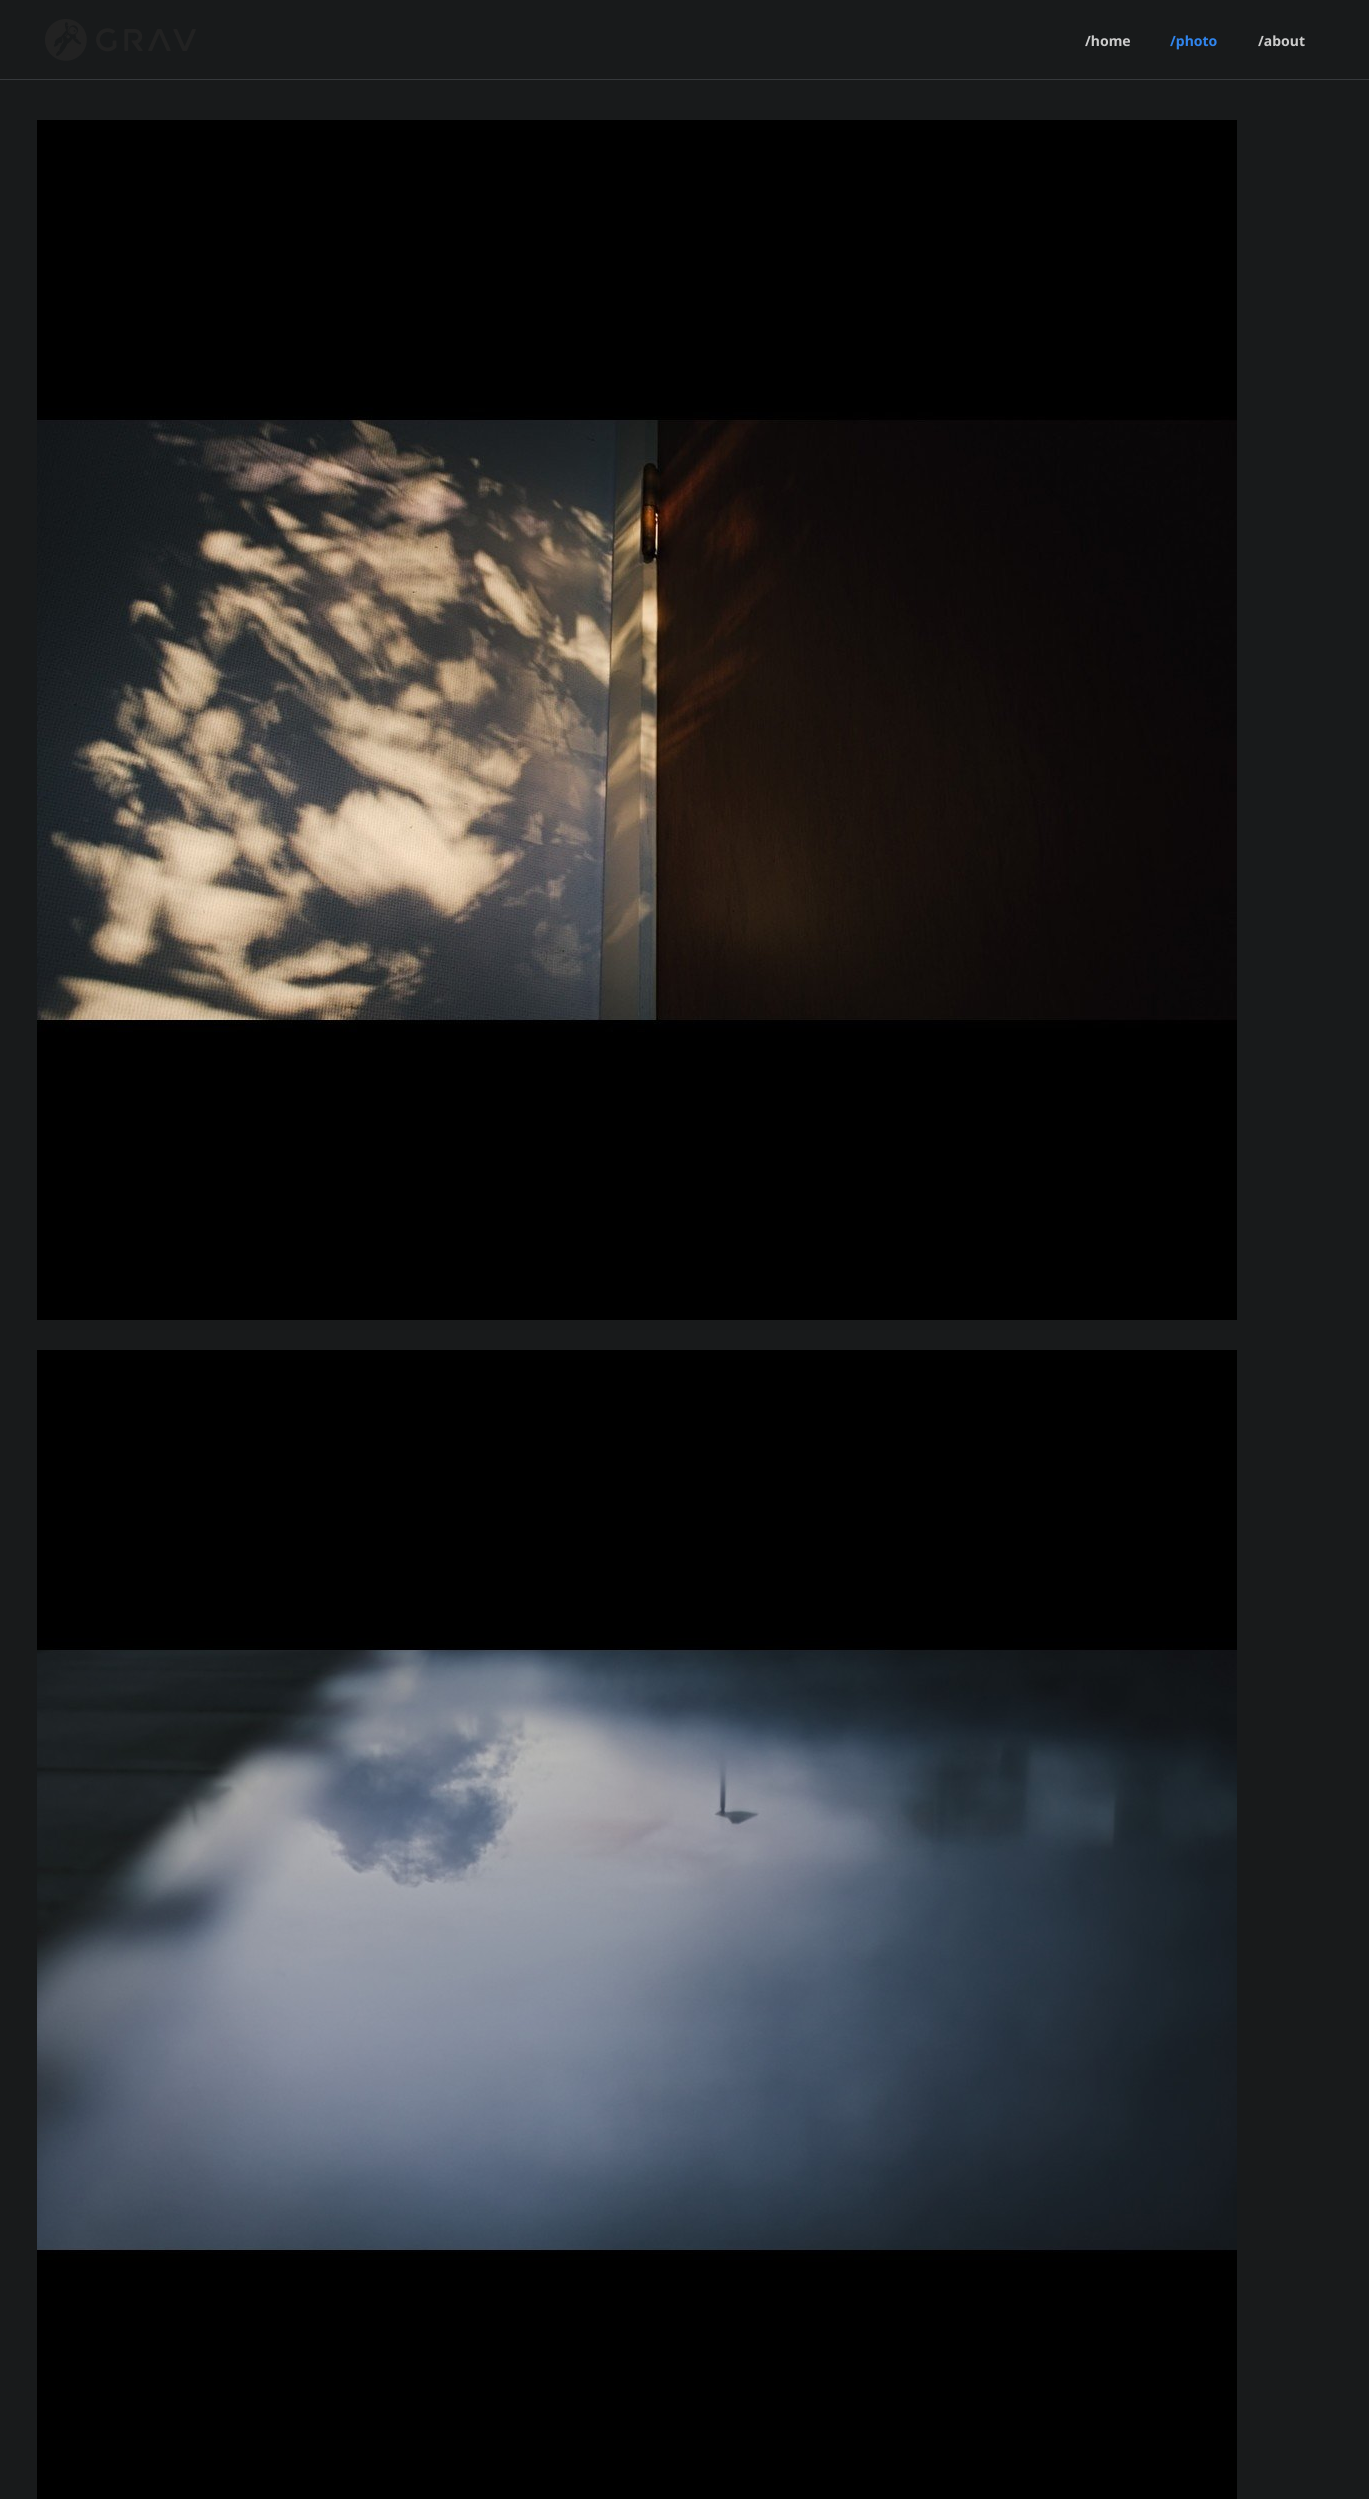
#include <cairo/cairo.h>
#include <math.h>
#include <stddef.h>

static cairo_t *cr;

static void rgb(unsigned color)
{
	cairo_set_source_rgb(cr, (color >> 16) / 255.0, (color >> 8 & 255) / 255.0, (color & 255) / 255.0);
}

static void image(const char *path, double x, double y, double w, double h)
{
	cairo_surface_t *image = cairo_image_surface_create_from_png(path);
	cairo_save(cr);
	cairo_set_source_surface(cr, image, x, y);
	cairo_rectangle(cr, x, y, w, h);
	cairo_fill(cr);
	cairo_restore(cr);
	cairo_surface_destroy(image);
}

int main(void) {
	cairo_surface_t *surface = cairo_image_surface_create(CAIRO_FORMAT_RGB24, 1369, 2499);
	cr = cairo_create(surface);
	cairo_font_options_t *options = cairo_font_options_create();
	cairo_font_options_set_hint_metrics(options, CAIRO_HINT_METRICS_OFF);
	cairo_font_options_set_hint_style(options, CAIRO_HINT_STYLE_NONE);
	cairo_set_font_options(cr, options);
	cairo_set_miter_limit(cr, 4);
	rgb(0x181a1b);
	cairo_paint(cr);
	rgb(0x36393c);
	cairo_rectangle(cr, 0, 79, 1369, 1);
	cairo_fill(cr);
	image("img/1.png", 45, 19, 151, 42);
	image("img/2.png", 37, 120, 1200, 1200);
	image("img/3.png", 37, 1350, 1200, 1149);
	cairo_select_font_face(cr, "Noto Sans", CAIRO_FONT_SLANT_NORMAL, CAIRO_FONT_WEIGHT_BOLD);
	cairo_set_font_size(cr, 14);
	rgb(0xcccccc);
	cairo_move_to(cr, 1085, 46);
	cairo_show_text(cr, "/home");
	rgb(0x3085ee);
	cairo_move_to(cr, 1170, 46);
	cairo_show_text(cr, "/photo");
	rgb(0xcccccc);
	cairo_move_to(cr, 1258, 46);
	cairo_show_text(cr, "/about");
	cairo_surface_write_to_png(surface, "page.png");
	cairo_font_options_destroy(options);
	cairo_destroy(cr);
	cairo_surface_destroy(surface);
	return 0;
}
